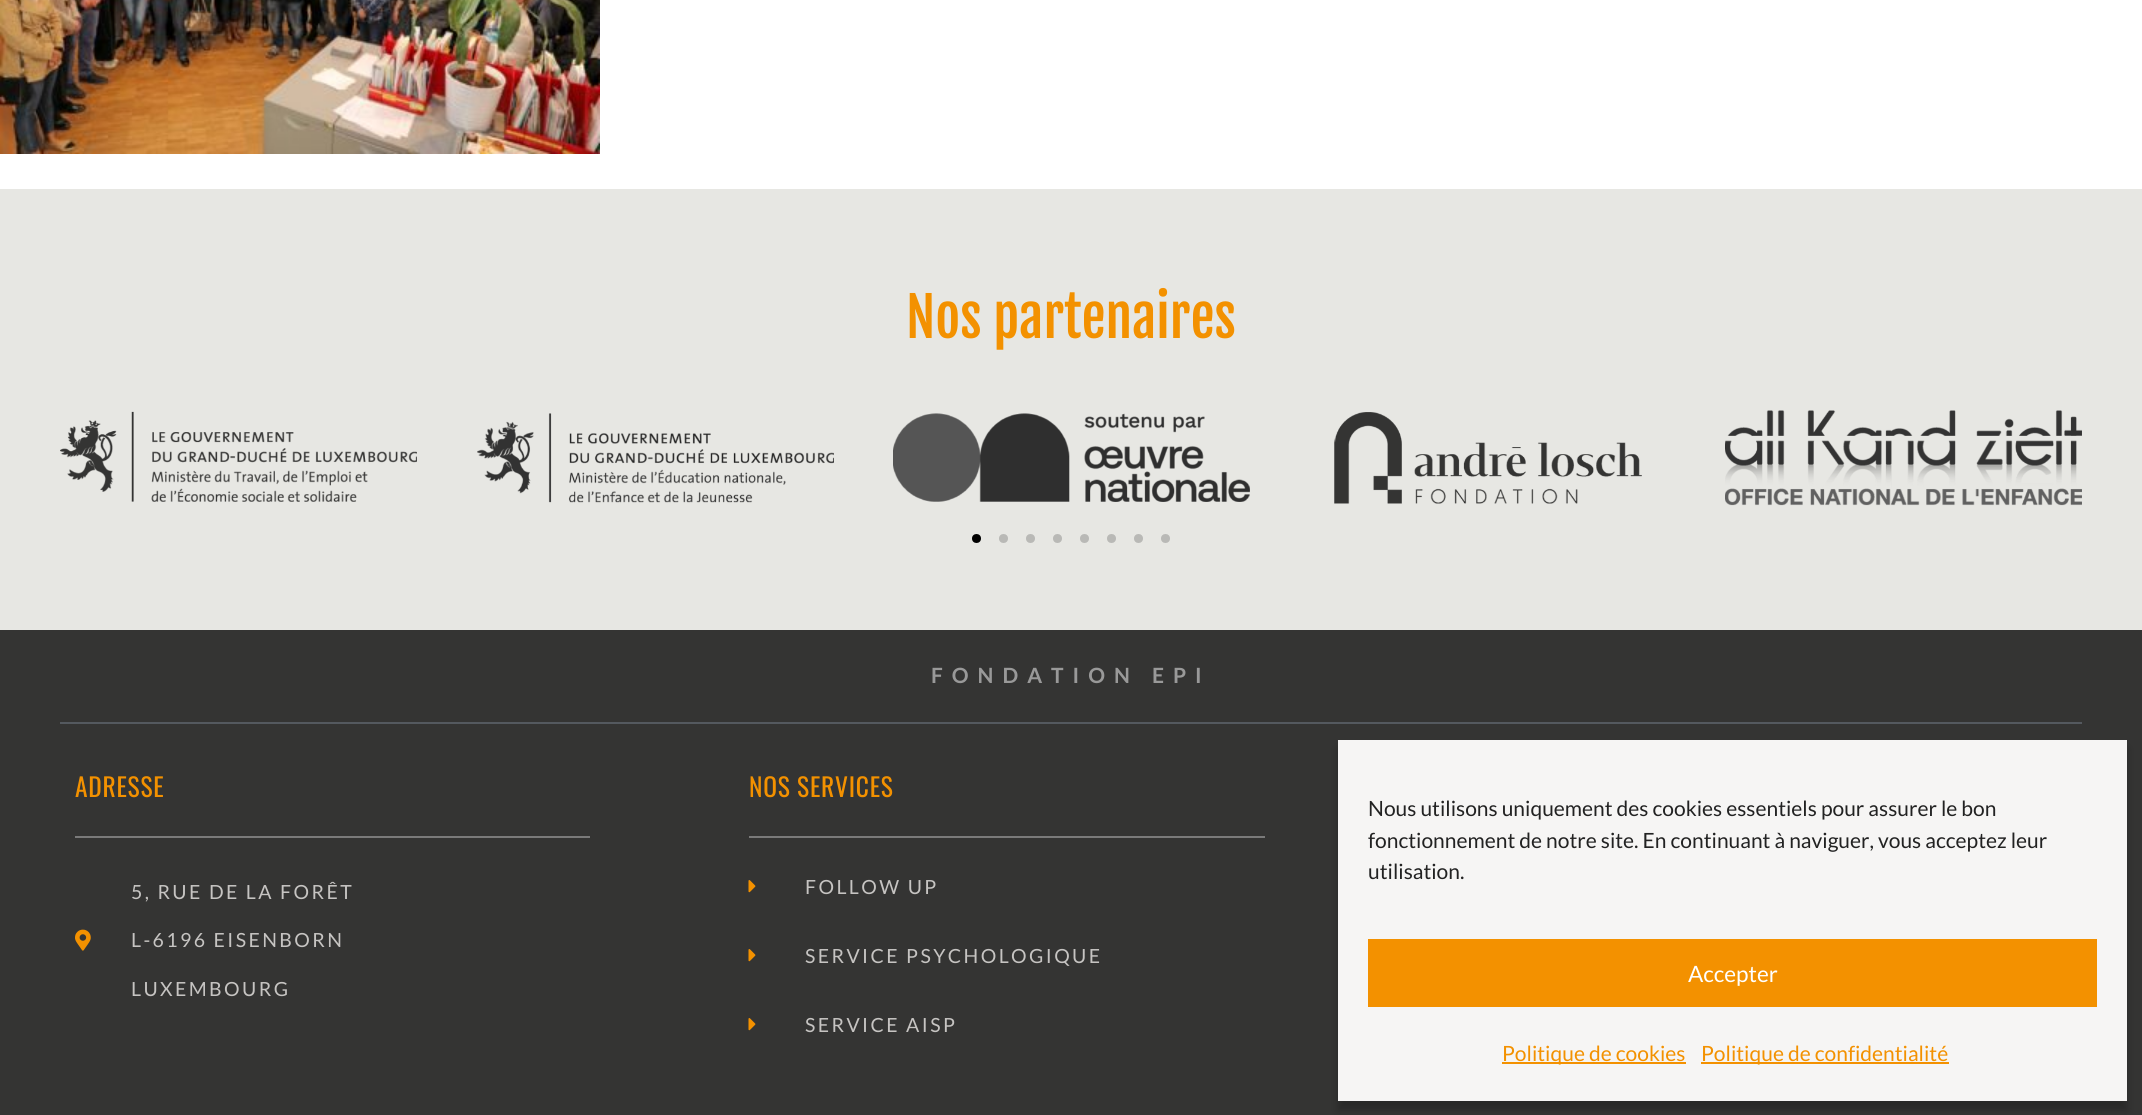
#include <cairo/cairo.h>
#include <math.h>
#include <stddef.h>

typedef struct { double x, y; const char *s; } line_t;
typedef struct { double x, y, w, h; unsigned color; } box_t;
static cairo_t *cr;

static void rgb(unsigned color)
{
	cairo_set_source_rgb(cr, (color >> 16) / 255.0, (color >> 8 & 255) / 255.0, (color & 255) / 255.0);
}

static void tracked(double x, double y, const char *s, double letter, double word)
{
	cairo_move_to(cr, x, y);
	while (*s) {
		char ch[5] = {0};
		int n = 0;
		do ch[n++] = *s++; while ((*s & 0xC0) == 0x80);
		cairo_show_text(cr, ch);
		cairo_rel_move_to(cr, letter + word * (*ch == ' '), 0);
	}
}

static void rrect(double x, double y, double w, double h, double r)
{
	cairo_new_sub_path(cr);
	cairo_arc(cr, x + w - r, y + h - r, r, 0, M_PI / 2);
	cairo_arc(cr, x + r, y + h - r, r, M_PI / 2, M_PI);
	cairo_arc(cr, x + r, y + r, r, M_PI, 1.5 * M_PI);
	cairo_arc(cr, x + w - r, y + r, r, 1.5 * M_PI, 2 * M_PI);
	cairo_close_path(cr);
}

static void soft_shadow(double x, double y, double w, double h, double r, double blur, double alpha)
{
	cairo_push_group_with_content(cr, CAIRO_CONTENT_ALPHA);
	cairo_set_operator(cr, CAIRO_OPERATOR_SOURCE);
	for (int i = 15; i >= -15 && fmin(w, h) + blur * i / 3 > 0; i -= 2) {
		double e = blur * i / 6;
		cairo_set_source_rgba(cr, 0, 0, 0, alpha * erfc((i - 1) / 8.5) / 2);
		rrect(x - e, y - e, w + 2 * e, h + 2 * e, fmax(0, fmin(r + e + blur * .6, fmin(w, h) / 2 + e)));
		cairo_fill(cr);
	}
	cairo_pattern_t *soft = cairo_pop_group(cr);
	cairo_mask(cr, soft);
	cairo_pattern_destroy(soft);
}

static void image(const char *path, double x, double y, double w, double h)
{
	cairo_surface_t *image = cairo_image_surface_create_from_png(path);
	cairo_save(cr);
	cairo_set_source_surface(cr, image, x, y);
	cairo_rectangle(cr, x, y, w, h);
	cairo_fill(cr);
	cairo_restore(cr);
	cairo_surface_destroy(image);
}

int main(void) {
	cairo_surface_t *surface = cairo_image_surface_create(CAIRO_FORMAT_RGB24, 2142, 1115);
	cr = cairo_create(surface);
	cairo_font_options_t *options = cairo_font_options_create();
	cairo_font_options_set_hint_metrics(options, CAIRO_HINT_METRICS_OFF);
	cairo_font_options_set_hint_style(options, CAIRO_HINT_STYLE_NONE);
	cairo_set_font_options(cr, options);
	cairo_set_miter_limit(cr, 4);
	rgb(0xffffff);
	cairo_paint(cr);
	image("img/1.png", 0, 0, 600, 154);
	rgb(0xe7e7e3);
	cairo_rectangle(cr, 0, 189, 2142, 441);
	cairo_fill(cr);
	image("img/2.png", 60, 411, 357, 91);
	image("img/3.png", 477, 413, 357, 90);
	image("img/4.png", 893, 413, 357, 89);
	image("img/5.png", 1334, 412, 308, 92);
	image("img/6.png", 1725, 410, 357, 96);
	rgb(0x000000);
	cairo_arc(cr, 976.5, 538.5, 4.5, 0, 2 * M_PI);
	cairo_fill(cr);
	rgb(0xb9b9b6);
	cairo_arc(cr, 1003.5, 538.5, 4.5, 0, 2 * M_PI);
	cairo_fill(cr);
	cairo_arc(cr, 1030.5, 538.5, 4.5, 0, 2 * M_PI);
	cairo_fill(cr);
	cairo_arc(cr, 1057.5, 538.5, 4.5, 0, 2 * M_PI);
	cairo_fill(cr);
	cairo_arc(cr, 1084.5, 538.5, 4.5, 0, 2 * M_PI);
	cairo_fill(cr);
	cairo_arc(cr, 1111.5, 538.5, 4.5, 0, 2 * M_PI);
	cairo_fill(cr);
	cairo_arc(cr, 1138.5, 538.5, 4.5, 0, 2 * M_PI);
	cairo_fill(cr);
	cairo_arc(cr, 1165.5, 538.5, 4.5, 0, 2 * M_PI);
	cairo_fill(cr);
	{
		static const box_t items[] = {
			{0, 630, 2142, 485, 0x343433},
			{60, 722, 2022, 2, 0x54595f},
			{75, 836, 515, 2, 0x7a7a7a},
		};
		for (size_t i = 0; i < sizeof items / sizeof *items; i++) {
			rgb(items[i].color);
			cairo_rectangle(cr, items[i].x, items[i].y, items[i].w, items[i].h);
			cairo_fill(cr);
		}
	}
	image("img/7.png", 75, 929, 16, 22);
	cairo_rectangle(cr, 749, 836, 516, 2);
	cairo_fill(cr);
	image("img/8.png", 748, 880, 8, 13);
	image("img/8.png", 748, 949, 8, 13);
	image("img/8.png", 748, 1018, 8, 13);
	rgb(0x000000);
	soft_shadow(1338, 749, 789, 361, 0, 4.5, 0.23);
	{
		static const box_t items[] = {
			{1338, 740, 789, 361, 0xf6f5f4},
			{1368, 939, 729, 68, 0xf39100},
			{1502, 1062, 184, 2, 0xf39100},
			{1701, 1062, 248, 2, 0xf39100},
		};
		for (size_t i = 0; i < sizeof items / sizeof *items; i++) {
			rgb(items[i].color);
			cairo_rectangle(cr, items[i].x, items[i].y, items[i].w, items[i].h);
			cairo_fill(cr);
		}
	}
	cairo_select_font_face(cr, "Fjalla One", CAIRO_FONT_SLANT_NORMAL, CAIRO_FONT_WEIGHT_NORMAL);
	cairo_set_font_size(cr, 54);
	cairo_move_to(cr, 906, 338);
	cairo_show_text(cr, "Nos partenaires");
	cairo_select_font_face(cr, "Lato", CAIRO_FONT_SLANT_NORMAL, CAIRO_FONT_WEIGHT_BOLD);
	cairo_set_font_size(cr, 21);
	rgb(0x999999);
	tracked(931, 683, "FONDATION EPI", 9, 0);
	cairo_select_font_face(cr, "Oswald", CAIRO_FONT_SLANT_NORMAL, CAIRO_FONT_WEIGHT_NORMAL);
	cairo_set_font_size(cr, 25.5);
	rgb(0xf39100);
	tracked(75, 797, "ADRESSE", 0.75, 0);
	cairo_select_font_face(cr, "Lato", CAIRO_FONT_SLANT_NORMAL, CAIRO_FONT_WEIGHT_NORMAL);
	cairo_set_font_size(cr, 19.5);
	rgb(0xc6c4c2);
	{
		static const line_t items[] = {
			{131, 899, "5, RUE DE LA FORÊT"},
			{131, 947, "L-6196 EISENBORN"},
			{131, 996, "LUXEMBOURG"},
		};
		for (size_t i = 0; i < sizeof items / sizeof *items; i++) {
			tracked(items[i].x, items[i].y, items[i].s, 2.4, 0);
		}
	}
	cairo_select_font_face(cr, "Oswald", CAIRO_FONT_SLANT_NORMAL, CAIRO_FONT_WEIGHT_NORMAL);
	cairo_set_font_size(cr, 25.5);
	rgb(0xf39100);
	tracked(749, 797, "NOS SERVICES", 0.75, 0);
	cairo_select_font_face(cr, "Lato", CAIRO_FONT_SLANT_NORMAL, CAIRO_FONT_WEIGHT_NORMAL);
	cairo_set_font_size(cr, 19.5);
	rgb(0xc6c4c2);
	{
		static const line_t items[] = {
			{805, 894, "FOLLOW UP"},
			{805, 963, "SERVICE PSYCHOLOGIQUE"},
			{805, 1032, "SERVICE AISP"},
		};
		for (size_t i = 0; i < sizeof items / sizeof *items; i++) {
			tracked(items[i].x, items[i].y, items[i].s, 2.4, 0);
		}
	}
	cairo_set_font_size(cr, 21);
	rgb(0x222222);
	{
		static const line_t items[] = {
			{1368, 816, "Nous utilisons uniquement des cookies essentiels pour assurer le bon"},
			{1368, 848, "fonctionnement de notre site. En continuant à naviguer, vous acceptez leur"},
			{1368, 879, "utilisation."},
		};
		for (size_t i = 0; i < sizeof items / sizeof *items; i++) {
			cairo_move_to(cr, items[i].x, items[i].y);
			cairo_show_text(cr, items[i].s);
		}
	}
	cairo_set_font_size(cr, 22.5);
	rgb(0xffffff);
	cairo_move_to(cr, 1688, 982);
	cairo_show_text(cr, "Accepter");
	cairo_set_font_size(cr, 21);
	rgb(0xf39100);
	cairo_move_to(cr, 1502, 1061);
	cairo_show_text(cr, "Politique de cookies");
	cairo_move_to(cr, 1701, 1061);
	cairo_show_text(cr, "Politique de confidentialité");
	cairo_surface_write_to_png(surface, "page.png");
	cairo_font_options_destroy(options);
	cairo_destroy(cr);
	cairo_surface_destroy(surface);
	return 0;
}
